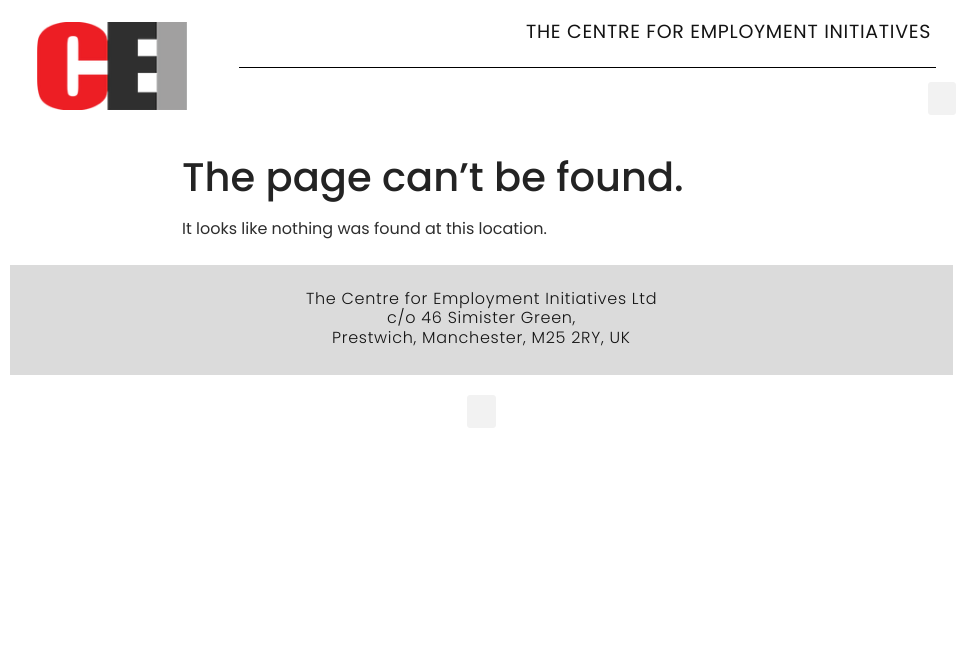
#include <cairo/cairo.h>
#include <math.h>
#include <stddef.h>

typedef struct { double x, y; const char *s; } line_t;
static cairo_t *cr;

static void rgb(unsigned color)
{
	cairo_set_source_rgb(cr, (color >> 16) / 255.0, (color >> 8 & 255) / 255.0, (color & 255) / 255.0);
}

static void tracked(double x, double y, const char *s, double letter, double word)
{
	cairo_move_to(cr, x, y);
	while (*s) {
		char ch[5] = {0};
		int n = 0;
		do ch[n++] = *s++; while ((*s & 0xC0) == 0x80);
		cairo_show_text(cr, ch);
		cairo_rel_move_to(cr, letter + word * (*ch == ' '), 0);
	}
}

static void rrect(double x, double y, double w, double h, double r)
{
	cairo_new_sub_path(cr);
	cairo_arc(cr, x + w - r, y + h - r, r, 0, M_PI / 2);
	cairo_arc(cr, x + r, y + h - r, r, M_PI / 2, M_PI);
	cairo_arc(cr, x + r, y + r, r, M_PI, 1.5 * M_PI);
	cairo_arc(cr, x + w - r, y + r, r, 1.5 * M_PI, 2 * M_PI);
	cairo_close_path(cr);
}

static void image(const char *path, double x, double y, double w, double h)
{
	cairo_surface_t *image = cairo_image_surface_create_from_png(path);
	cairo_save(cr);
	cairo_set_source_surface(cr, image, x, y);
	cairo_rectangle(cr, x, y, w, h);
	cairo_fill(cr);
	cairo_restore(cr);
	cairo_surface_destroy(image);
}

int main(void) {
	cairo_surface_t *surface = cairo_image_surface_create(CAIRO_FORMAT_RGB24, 963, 655);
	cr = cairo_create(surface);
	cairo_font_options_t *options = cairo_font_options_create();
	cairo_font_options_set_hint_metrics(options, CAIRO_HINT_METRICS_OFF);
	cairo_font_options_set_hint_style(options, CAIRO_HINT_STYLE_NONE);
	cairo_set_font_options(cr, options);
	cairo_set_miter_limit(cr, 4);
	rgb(0xffffff);
	cairo_paint(cr);
	image("img/1.png", 37, 22, 150, 88);
	rgb(0x000000);
	cairo_rectangle(cr, 239, 67, 697, 1);
	cairo_fill(cr);
	rgb(0xf2f2f2);
	rrect(928, 82, 28, 33, 3);
	cairo_fill(cr);
	rgb(0xdbdbdb);
	cairo_rectangle(cr, 10, 265, 943, 110);
	cairo_fill(cr);
	rgb(0xf2f2f2);
	rrect(467, 395, 29, 33, 3);
	cairo_fill(cr);
	cairo_select_font_face(cr, "Poppins", CAIRO_FONT_SLANT_NORMAL, CAIRO_FONT_WEIGHT_NORMAL);
	cairo_set_font_size(cr, 19);
	rgb(0x131313);
	tracked(526, 38, "THE CENTRE FOR EMPLOYMENT INITIATIVES", 0.7, 0);
	cairo_select_font_face(cr, "Poppins Medium", CAIRO_FONT_SLANT_NORMAL, CAIRO_FONT_WEIGHT_NORMAL);
	cairo_set_font_size(cr, 40);
	rgb(0x232323);
	cairo_move_to(cr, 182, 191);
	cairo_show_text(cr, "The page can’t be found.");
	cairo_select_font_face(cr, "Poppins", CAIRO_FONT_SLANT_NORMAL, CAIRO_FONT_WEIGHT_NORMAL);
	cairo_set_font_size(cr, 16);
	rgb(0x2d2d2d);
	cairo_move_to(cr, 182, 234);
	cairo_show_text(cr, "It looks like nothing was found at this location.");
	cairo_select_font_face(cr, "Poppins Light", CAIRO_FONT_SLANT_NORMAL, CAIRO_FONT_WEIGHT_NORMAL);
	rgb(0x131313);
	{
		static const line_t items[] = {
			{306, 304, "The Centre for Employment Initiatives Ltd"},
			{387, 323, "c/o 46 Simister Green,"},
			{332, 343, "Prestwich, Manchester, M25 2RY, UK"},
		};
		for (size_t i = 0; i < sizeof items / sizeof *items; i++) {
			tracked(items[i].x, items[i].y, items[i].s, 0.7, 0);
		}
	}
	cairo_surface_write_to_png(surface, "page.png");
	cairo_font_options_destroy(options);
	cairo_destroy(cr);
	cairo_surface_destroy(surface);
	return 0;
}
